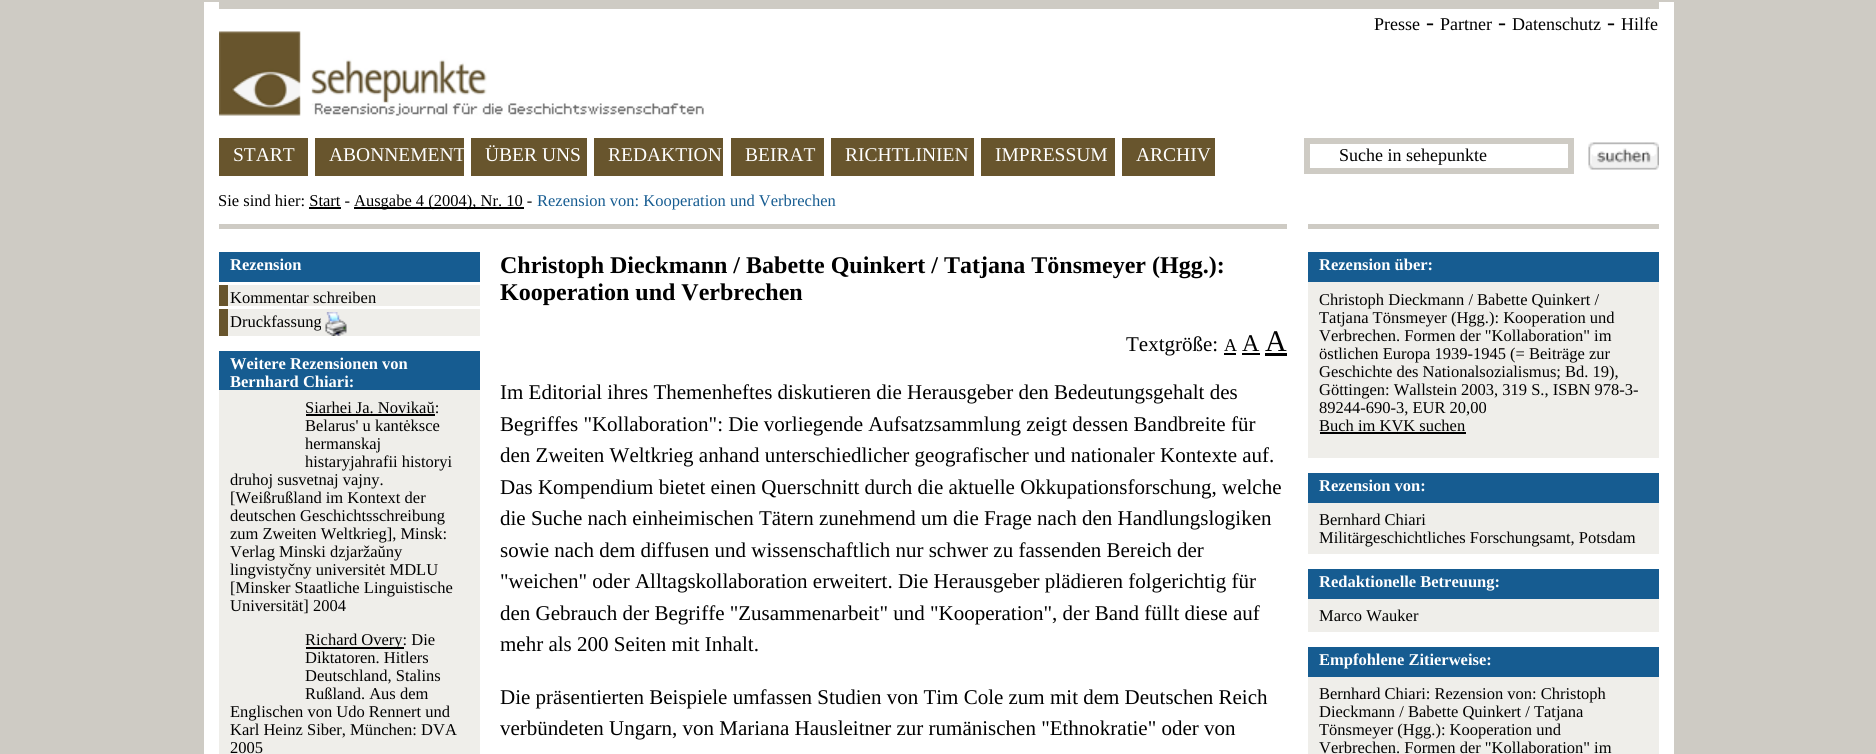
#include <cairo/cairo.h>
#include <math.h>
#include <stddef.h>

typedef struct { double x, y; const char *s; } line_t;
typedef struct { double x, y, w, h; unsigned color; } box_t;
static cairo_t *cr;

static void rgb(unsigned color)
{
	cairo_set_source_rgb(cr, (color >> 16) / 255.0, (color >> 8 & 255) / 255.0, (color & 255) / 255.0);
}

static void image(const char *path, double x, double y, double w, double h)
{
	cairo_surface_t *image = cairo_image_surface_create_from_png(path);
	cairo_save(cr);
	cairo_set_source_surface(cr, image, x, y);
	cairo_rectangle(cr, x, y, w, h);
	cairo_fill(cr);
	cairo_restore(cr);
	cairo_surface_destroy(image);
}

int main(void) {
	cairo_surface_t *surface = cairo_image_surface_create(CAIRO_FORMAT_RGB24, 1876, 754);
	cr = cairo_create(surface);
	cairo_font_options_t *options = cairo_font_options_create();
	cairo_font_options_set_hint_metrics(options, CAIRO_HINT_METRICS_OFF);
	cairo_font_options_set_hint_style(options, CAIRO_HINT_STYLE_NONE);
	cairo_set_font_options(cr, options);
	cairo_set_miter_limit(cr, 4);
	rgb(0xcecbc4);
	cairo_paint(cr);
	rgb(0xffffff);
	cairo_rectangle(cr, 204, 2, 1470, 752);
	cairo_fill(cr);
	rgb(0xcecbc4);
	cairo_rectangle(cr, 219, 2, 1440, 7);
	cairo_fill(cr);
	image("img/1.png", 219, 31, 485, 85);
	{
		static const box_t items[] = {
			{219, 138, 89, 38, 0x68552d},
			{315, 138, 149, 38, 0x68552d},
			{471, 138, 116, 38, 0x68552d},
			{594, 138, 129, 38, 0x68552d},
			{731, 138, 93, 38, 0x68552d},
			{831, 138, 143, 38, 0x68552d},
			{981, 138, 134, 38, 0x68552d},
			{1122, 138, 93, 38, 0x68552d},
		};
		for (size_t i = 0; i < sizeof items / sizeof *items; i++) {
			rgb(items[i].color);
			cairo_rectangle(cr, items[i].x, items[i].y, items[i].w, items[i].h);
			cairo_fill(cr);
		}
	}
	cairo_rectangle(cr, 1307, 141, 264, 30);
	rgb(0xcecbc4);
	cairo_set_line_width(cr, 6);
	cairo_stroke(cr);
	image("img/2.png", 1588, 142, 71, 28);
	{
		static const box_t items[] = {
			{354, 207, 170, 2, 0x000000},
			{309, 207, 32, 2, 0x000000},
			{219, 224, 1068, 5, 0xcecbc4},
			{1308, 224, 351, 5, 0xcecbc4},
			{219, 252, 261, 30, 0x165c91},
			{219, 285, 9, 21, 0x68552d},
			{228, 285, 252, 21, 0xefeeea},
			{219, 309, 9, 27, 0x68552d},
			{228, 309, 252, 27, 0xefeeea},
		};
		for (size_t i = 0; i < sizeof items / sizeof *items; i++) {
			rgb(items[i].color);
			cairo_rectangle(cr, items[i].x, items[i].y, items[i].w, items[i].h);
			cairo_fill(cr);
		}
	}
	image("img/3.png", 325, 312, 22, 24);
	{
		static const box_t items[] = {
			{219, 351, 261, 39, 0x165c91},
			{219, 390, 261, 364, 0xefeeea},
			{306, 414, 129, 2, 0x000000},
			{306, 647, 98, 2, 0x000000},
			{1224, 353, 12, 2, 0x000000},
			{1242, 353, 18, 2, 0x000000},
			{1265, 353, 22, 3, 0x000000},
			{1308, 252, 351, 30, 0x165c91},
			{1308, 282, 351, 176, 0xefeeea},
			{1320, 432, 146, 2, 0x000000},
			{1308, 473, 351, 30, 0x165c91},
			{1308, 503, 351, 51, 0xefeeea},
			{1308, 569, 351, 30, 0x165c91},
			{1308, 599, 351, 33, 0xefeeea},
			{1308, 647, 351, 30, 0x165c91},
			{1308, 677, 351, 77, 0xefeeea},
		};
		for (size_t i = 0; i < sizeof items / sizeof *items; i++) {
			rgb(items[i].color);
			cairo_rectangle(cr, items[i].x, items[i].y, items[i].w, items[i].h);
			cairo_fill(cr);
		}
	}
	cairo_select_font_face(cr, "Liberation Serif", CAIRO_FONT_SLANT_NORMAL, CAIRO_FONT_WEIGHT_NORMAL);
	cairo_set_font_size(cr, 18);
	rgb(0x000000);
	cairo_move_to(cr, 1374, 30);
	cairo_show_text(cr, "Presse");
	cairo_set_font_size(cr, 24);
	cairo_move_to(cr, 1426, 30);
	cairo_show_text(cr, "-");
	cairo_set_font_size(cr, 18);
	cairo_move_to(cr, 1440, 30);
	cairo_show_text(cr, "Partner");
	cairo_set_font_size(cr, 24);
	cairo_move_to(cr, 1498, 30);
	cairo_show_text(cr, "-");
	cairo_set_font_size(cr, 18);
	cairo_move_to(cr, 1512, 30);
	cairo_show_text(cr, "Datenschutz");
	cairo_set_font_size(cr, 24);
	cairo_move_to(cr, 1607, 30);
	cairo_show_text(cr, "-");
	cairo_set_font_size(cr, 18);
	cairo_move_to(cr, 1621, 30);
	cairo_show_text(cr, "Hilfe");
	cairo_set_font_size(cr, 19.5);
	rgb(0xffffff);
	{
		static const line_t items[] = {
			{233, 161, "START"},
			{329, 161, "ABONNEMENT"},
			{485, 161, "ÜBER UNS"},
			{608, 161, "REDAKTION"},
			{745, 161, "BEIRAT"},
			{845, 161, "RICHTLINIEN"},
			{995, 161, "IMPRESSUM"},
			{1136, 161, "ARCHIV"},
		};
		for (size_t i = 0; i < sizeof items / sizeof *items; i++) {
			cairo_move_to(cr, items[i].x, items[i].y);
			cairo_show_text(cr, items[i].s);
		}
	}
	cairo_set_font_size(cr, 18);
	rgb(0x000000);
	cairo_move_to(cr, 1339, 161);
	cairo_show_text(cr, "Suche in sehepunkte");
	cairo_set_font_size(cr, 16.5);
	cairo_move_to(cr, 218, 206);
	cairo_show_text(cr, "Sie sind hier: Start -");
	cairo_move_to(cr, 354, 206);
	cairo_show_text(cr, "Ausgabe 4 (2004), Nr. 10 -");
	rgb(0x165c91);
	cairo_move_to(cr, 537, 206);
	cairo_show_text(cr, "Rezension von: Kooperation und Verbrechen");
	cairo_select_font_face(cr, "Liberation Serif", CAIRO_FONT_SLANT_NORMAL, CAIRO_FONT_WEIGHT_BOLD);
	rgb(0xffffff);
	cairo_move_to(cr, 230, 270);
	cairo_show_text(cr, "Rezension");
	cairo_select_font_face(cr, "Liberation Serif", CAIRO_FONT_SLANT_NORMAL, CAIRO_FONT_WEIGHT_NORMAL);
	rgb(0x000000);
	cairo_move_to(cr, 230, 303);
	cairo_show_text(cr, "Kommentar schreiben");
	cairo_move_to(cr, 230, 327);
	cairo_show_text(cr, "Druckfassung");
	cairo_select_font_face(cr, "Liberation Serif", CAIRO_FONT_SLANT_NORMAL, CAIRO_FONT_WEIGHT_BOLD);
	rgb(0xffffff);
	cairo_move_to(cr, 230, 369);
	cairo_show_text(cr, "Weitere Rezensionen von");
	cairo_move_to(cr, 230, 387);
	cairo_show_text(cr, "Bernhard Chiari:");
	cairo_select_font_face(cr, "Liberation Serif", CAIRO_FONT_SLANT_NORMAL, CAIRO_FONT_WEIGHT_NORMAL);
	rgb(0x000000);
	{
		static const line_t items[] = {
			{305, 413, "Siarhei Ja. Novikaŭ:"},
			{305, 431, "Belarus' u kantėksce"},
			{305, 449, "hermanskaj"},
			{305, 467, "histaryjahrafii historyi"},
			{230, 485, "druhoj susvetnaj vajny."},
			{230, 503, "[Weißrußland im Kontext der"},
			{230, 521, "deutschen Geschichtsschreibung"},
			{230, 539, "zum Zweiten Weltkrieg], Minsk:"},
			{230, 557, "Verlag Minski dzjaržaŭny"},
			{230, 575, "lingvistyčny universitėt MDLU"},
			{230, 593, "[Minsker Staatliche Linguistische"},
			{230, 611, "Universität] 2004"},
			{305, 645, "Richard Overy: Die"},
			{305, 663, "Diktatoren. Hitlers"},
			{305, 681, "Deutschland, Stalins"},
			{305, 699, "Rußland. Aus dem"},
			{230, 717, "Englischen von Udo Rennert und"},
			{230, 735, "Karl Heinz Siber, München: DVA"},
			{230, 753, "2005"},
		};
		for (size_t i = 0; i < sizeof items / sizeof *items; i++) {
			cairo_move_to(cr, items[i].x, items[i].y);
			cairo_show_text(cr, items[i].s);
		}
	}
	cairo_select_font_face(cr, "Liberation Serif", CAIRO_FONT_SLANT_NORMAL, CAIRO_FONT_WEIGHT_BOLD);
	cairo_set_font_size(cr, 24);
	cairo_move_to(cr, 500, 273);
	cairo_show_text(cr, "Christoph Dieckmann / Babette Quinkert / Tatjana Tönsmeyer (Hgg.):");
	cairo_move_to(cr, 500, 300);
	cairo_show_text(cr, "Kooperation und Verbrechen");
	cairo_select_font_face(cr, "Liberation Serif", CAIRO_FONT_SLANT_NORMAL, CAIRO_FONT_WEIGHT_NORMAL);
	cairo_set_font_size(cr, 21);
	cairo_move_to(cr, 1126, 351);
	cairo_show_text(cr, "Textgröße:");
	cairo_set_font_size(cr, 18);
	cairo_move_to(cr, 1224, 351);
	cairo_show_text(cr, "A");
	cairo_set_font_size(cr, 24);
	cairo_move_to(cr, 1242, 351);
	cairo_show_text(cr, "A");
	cairo_set_font_size(cr, 30);
	cairo_move_to(cr, 1265, 351);
	cairo_show_text(cr, "A");
	cairo_set_font_size(cr, 21);
	{
		static const line_t items[] = {
			{500, 399, "Im Editorial ihres Themenheftes diskutieren die Herausgeber den Bedeutungsgehalt des"},
			{500, 431, "Begriffes \"Kollaboration\": Die vorliegende Aufsatzsammlung zeigt dessen Bandbreite für"},
			{500, 462, "den Zweiten Weltkrieg anhand unterschiedlicher geografischer und nationaler Kontexte auf."},
			{500, 494, "Das Kompendium bietet einen Querschnitt durch die aktuelle Okkupationsforschung, welche"},
			{500, 525, "die Suche nach einheimischen Tätern zunehmend um die Frage nach den Handlungslogiken"},
			{500, 557, "sowie nach dem diffusen und wissenschaftlich nur schwer zu fassenden Bereich der"},
			{500, 588, "\"weichen\" oder Alltagskollaboration erweitert. Die Herausgeber plädieren folgerichtig für"},
			{500, 620, "den Gebrauch der Begriffe \"Zusammenarbeit\" und \"Kooperation\", der Band füllt diese auf"},
			{500, 651, "mehr als 200 Seiten mit Inhalt."},
			{500, 704, "Die präsentierten Beispiele umfassen Studien von Tim Cole zum mit dem Deutschen Reich"},
			{500, 735, "verbündeten Ungarn, von Mariana Hausleitner zur rumänischen \"Ethnokratie\" oder von"},
		};
		for (size_t i = 0; i < sizeof items / sizeof *items; i++) {
			cairo_move_to(cr, items[i].x, items[i].y);
			cairo_show_text(cr, items[i].s);
		}
	}
	cairo_select_font_face(cr, "Liberation Serif", CAIRO_FONT_SLANT_NORMAL, CAIRO_FONT_WEIGHT_BOLD);
	cairo_set_font_size(cr, 16.5);
	rgb(0xffffff);
	cairo_move_to(cr, 1319, 270);
	cairo_show_text(cr, "Rezension über:");
	cairo_select_font_face(cr, "Liberation Serif", CAIRO_FONT_SLANT_NORMAL, CAIRO_FONT_WEIGHT_NORMAL);
	rgb(0x000000);
	{
		static const line_t items[] = {
			{1319, 305, "Christoph Dieckmann / Babette Quinkert /"},
			{1319, 323, "Tatjana Tönsmeyer (Hgg.): Kooperation und"},
			{1319, 341, "Verbrechen. Formen der \"Kollaboration\" im"},
			{1319, 359, "östlichen Europa 1939-1945 (= Beiträge zur"},
			{1319, 377, "Geschichte des Nationalsozialismus; Bd. 19),"},
			{1319, 395, "Göttingen: Wallstein 2003, 319 S., ISBN 978-3-"},
			{1319, 413, "89244-690-3, EUR 20,00"},
			{1319, 431, "Buch im KVK suchen"},
		};
		for (size_t i = 0; i < sizeof items / sizeof *items; i++) {
			cairo_move_to(cr, items[i].x, items[i].y);
			cairo_show_text(cr, items[i].s);
		}
	}
	cairo_select_font_face(cr, "Liberation Serif", CAIRO_FONT_SLANT_NORMAL, CAIRO_FONT_WEIGHT_BOLD);
	rgb(0xffffff);
	cairo_move_to(cr, 1319, 491);
	cairo_show_text(cr, "Rezension von:");
	cairo_select_font_face(cr, "Liberation Serif", CAIRO_FONT_SLANT_NORMAL, CAIRO_FONT_WEIGHT_NORMAL);
	rgb(0x000000);
	cairo_move_to(cr, 1319, 525);
	cairo_show_text(cr, "Bernhard Chiari");
	cairo_move_to(cr, 1319, 543);
	cairo_show_text(cr, "Militärgeschichtliches Forschungsamt, Potsdam");
	cairo_select_font_face(cr, "Liberation Serif", CAIRO_FONT_SLANT_NORMAL, CAIRO_FONT_WEIGHT_BOLD);
	rgb(0xffffff);
	cairo_move_to(cr, 1319, 587);
	cairo_show_text(cr, "Redaktionelle Betreuung:");
	cairo_select_font_face(cr, "Liberation Serif", CAIRO_FONT_SLANT_NORMAL, CAIRO_FONT_WEIGHT_NORMAL);
	rgb(0x000000);
	cairo_move_to(cr, 1319, 621);
	cairo_show_text(cr, "Marco Wauker");
	cairo_select_font_face(cr, "Liberation Serif", CAIRO_FONT_SLANT_NORMAL, CAIRO_FONT_WEIGHT_BOLD);
	rgb(0xffffff);
	cairo_move_to(cr, 1319, 665);
	cairo_show_text(cr, "Empfohlene Zitierweise:");
	cairo_select_font_face(cr, "Liberation Serif", CAIRO_FONT_SLANT_NORMAL, CAIRO_FONT_WEIGHT_NORMAL);
	rgb(0x000000);
	{
		static const line_t items[] = {
			{1319, 699, "Bernhard Chiari: Rezension von: Christoph"},
			{1319, 717, "Dieckmann / Babette Quinkert / Tatjana"},
			{1319, 735, "Tönsmeyer (Hgg.): Kooperation und"},
			{1319, 753, "Verbrechen. Formen der \"Kollaboration\" im"},
		};
		for (size_t i = 0; i < sizeof items / sizeof *items; i++) {
			cairo_move_to(cr, items[i].x, items[i].y);
			cairo_show_text(cr, items[i].s);
		}
	}
	cairo_surface_write_to_png(surface, "page.png");
	cairo_font_options_destroy(options);
	cairo_destroy(cr);
	cairo_surface_destroy(surface);
	return 0;
}
